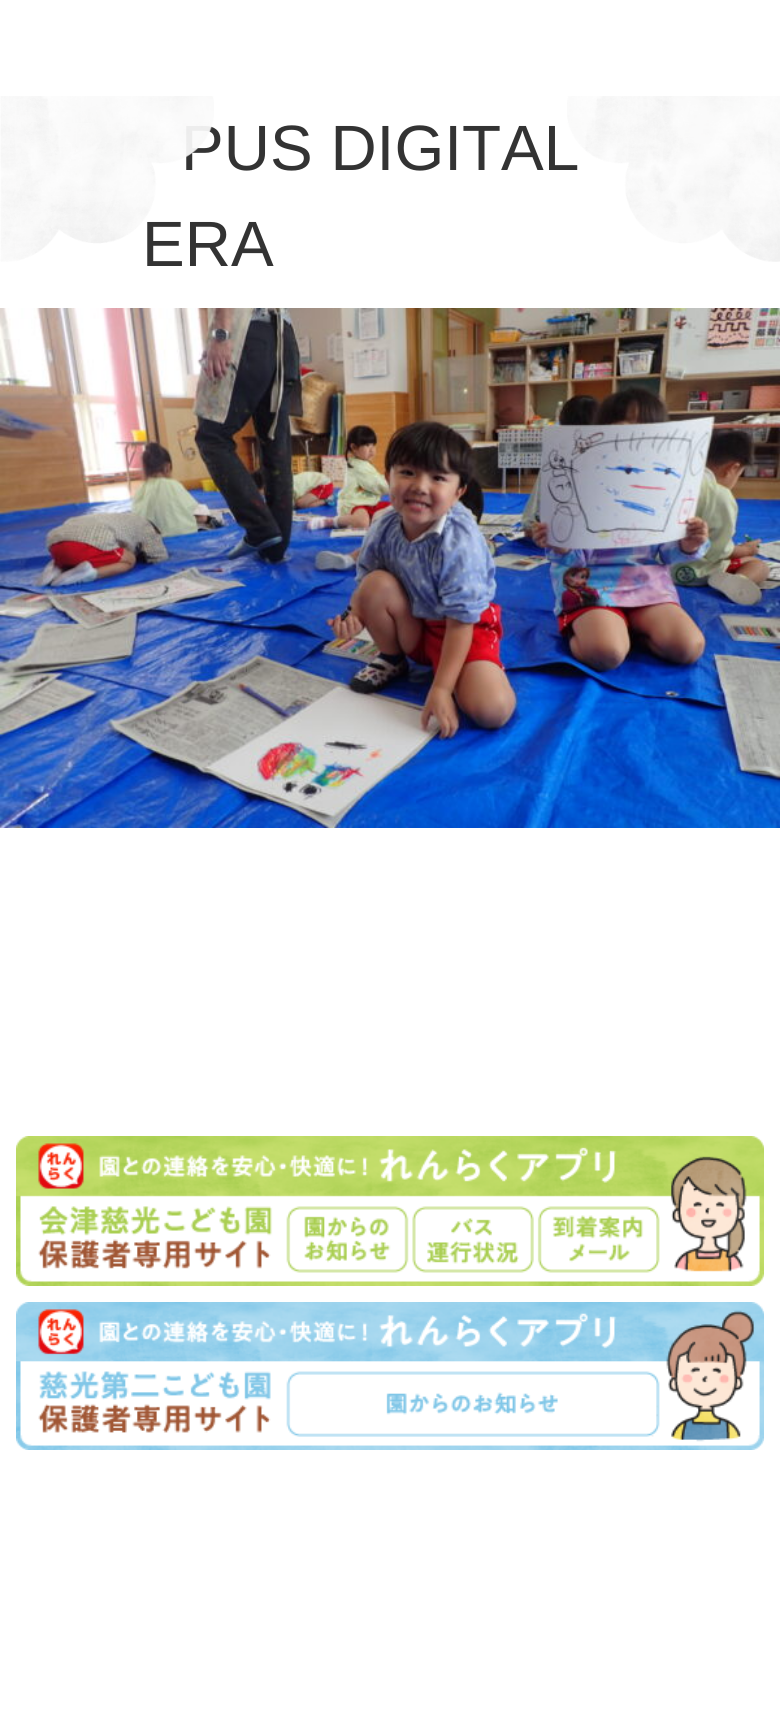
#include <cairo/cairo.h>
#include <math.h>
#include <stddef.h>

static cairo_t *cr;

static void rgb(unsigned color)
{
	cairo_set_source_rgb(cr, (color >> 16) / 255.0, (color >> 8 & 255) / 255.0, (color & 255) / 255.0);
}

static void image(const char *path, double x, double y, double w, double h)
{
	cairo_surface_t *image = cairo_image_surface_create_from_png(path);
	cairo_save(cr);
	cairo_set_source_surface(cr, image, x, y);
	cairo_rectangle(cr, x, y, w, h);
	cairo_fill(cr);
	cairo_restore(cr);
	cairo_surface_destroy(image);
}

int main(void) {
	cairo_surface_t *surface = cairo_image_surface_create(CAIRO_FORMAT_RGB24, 780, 1722);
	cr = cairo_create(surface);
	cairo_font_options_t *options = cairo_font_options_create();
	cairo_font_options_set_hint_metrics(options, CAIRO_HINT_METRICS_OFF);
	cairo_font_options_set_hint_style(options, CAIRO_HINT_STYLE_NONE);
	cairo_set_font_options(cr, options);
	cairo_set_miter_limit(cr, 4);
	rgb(0xffffff);
	cairo_paint(cr);
	image("img/2.png", 0, 308, 780, 520);
	image("img/4.png", 16, 1136, 748, 150);
	image("img/5.png", 16, 1302, 748, 148);
	cairo_select_font_face(cr, "Liberation Sans", CAIRO_FONT_SLANT_NORMAL, CAIRO_FONT_WEIGHT_NORMAL);
	cairo_set_font_size(cr, 64);
	rgb(0x333333);
	cairo_move_to(cr, 181, 170);
	cairo_show_text(cr, "PUS DIGITAL");
	cairo_move_to(cr, 142, 266);
	cairo_show_text(cr, "ERA");
	image("img/1.png", 0, 96, 214, 166);
	image("img/3.png", 567, 96, 213, 166);
	cairo_surface_write_to_png(surface, "page.png");
	cairo_font_options_destroy(options);
	cairo_destroy(cr);
	cairo_surface_destroy(surface);
	return 0;
}
